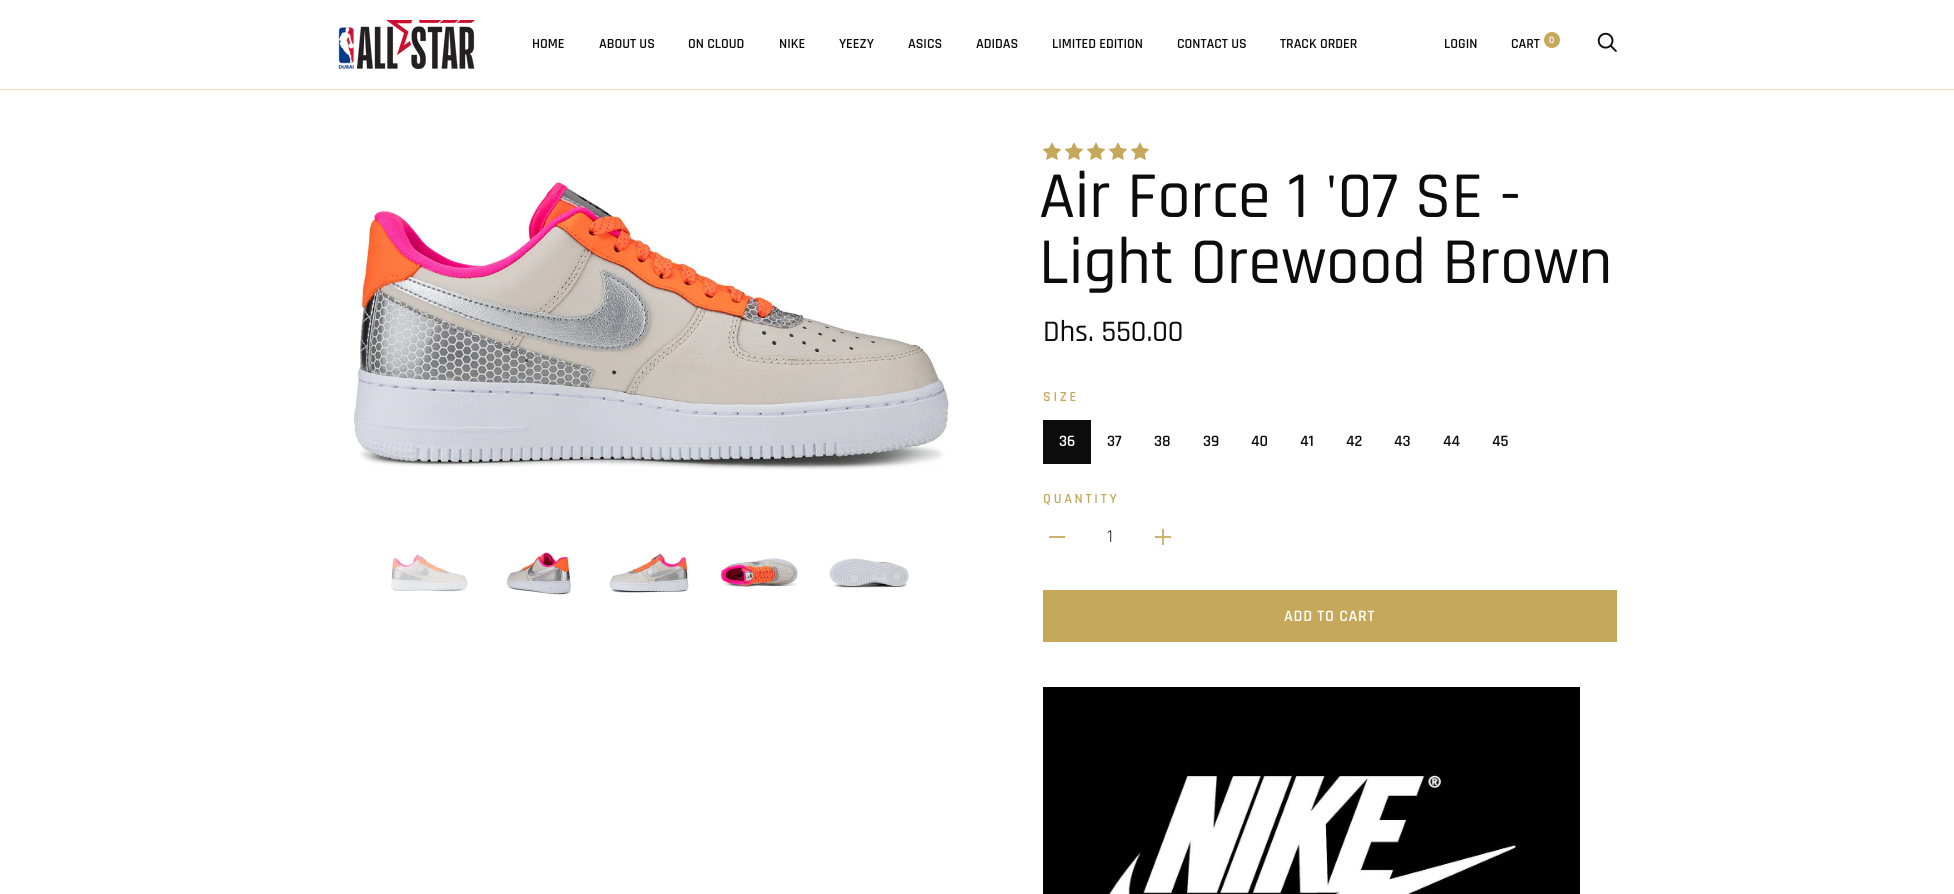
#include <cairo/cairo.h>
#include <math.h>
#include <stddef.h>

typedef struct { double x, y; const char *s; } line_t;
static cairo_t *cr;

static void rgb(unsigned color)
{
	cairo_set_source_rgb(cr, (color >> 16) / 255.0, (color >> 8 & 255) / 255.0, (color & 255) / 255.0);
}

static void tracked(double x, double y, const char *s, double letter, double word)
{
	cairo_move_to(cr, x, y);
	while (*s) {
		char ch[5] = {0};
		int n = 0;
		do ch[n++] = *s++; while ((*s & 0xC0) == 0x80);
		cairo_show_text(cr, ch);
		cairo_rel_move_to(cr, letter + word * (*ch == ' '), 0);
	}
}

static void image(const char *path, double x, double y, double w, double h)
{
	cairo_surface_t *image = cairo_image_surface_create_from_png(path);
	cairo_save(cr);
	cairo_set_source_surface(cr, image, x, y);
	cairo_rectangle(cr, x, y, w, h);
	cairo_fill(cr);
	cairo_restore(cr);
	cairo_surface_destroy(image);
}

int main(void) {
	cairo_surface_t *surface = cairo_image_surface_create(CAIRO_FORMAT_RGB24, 1954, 894);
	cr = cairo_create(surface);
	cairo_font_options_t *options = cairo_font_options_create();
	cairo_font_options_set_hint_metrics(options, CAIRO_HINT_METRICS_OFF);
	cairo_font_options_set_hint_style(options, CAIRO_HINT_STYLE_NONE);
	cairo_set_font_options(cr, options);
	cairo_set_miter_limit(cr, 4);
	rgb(0xffffff);
	cairo_paint(cr);
	rgb(0xe8dcbd);
	cairo_rectangle(cr, 0, 89, 1954, 1);
	cairo_fill(cr);
	image("img/1.png", 338, 20, 137, 49);
	rgb(0xc6a85b);
	cairo_arc(cr, 1552, 40, 8, 0, 2 * M_PI);
	cairo_fill(cr);
	image("img/2.png", 1597, 32, 20, 20);
	image("img/3.png", 353, 179, 596, 291);
	image("img/4.png", 391, 554, 77, 38);
	image("img/5.png", 506, 552, 65, 43);
	image("img/6.png", 609, 553, 80, 40);
	image("img/7.png", 720, 558, 79, 31);
	image("img/8.png", 829, 558, 80, 31);
	image("img/9.png", 1043, 142, 18, 18);
	image("img/9.png", 1065, 142, 18, 18);
	image("img/9.png", 1087, 142, 18, 18);
	image("img/9.png", 1109, 142, 18, 18);
	image("img/9.png", 1131, 142, 18, 18);
	rgb(0x0c0c0d);
	cairo_rectangle(cr, 1043, 420, 48, 44);
	cairo_fill(cr);
	rgb(0xcdb26f);
	cairo_rectangle(cr, 1049, 536, 16, 2);
	cairo_fill(cr);
	image("img/10.png", 1155, 529, 16, 16);
	rgb(0xc6a85b);
	cairo_rectangle(cr, 1043, 590, 574, 52);
	cairo_fill(cr);
	image("img/11.png", 1043, 687, 537, 207);
	cairo_select_font_face(cr, "Rajdhani SemiBold", CAIRO_FONT_SLANT_NORMAL, CAIRO_FONT_WEIGHT_NORMAL);
	cairo_set_font_size(cr, 14);
	rgb(0x0c0c0d);
	{
		static const line_t items[] = {
			{532, 48, "HOME"},
			{599, 48, "ABOUT US"},
			{688, 48, "ON CLOUD"},
			{779, 48, "NIKE"},
			{839, 48, "YEEZY"},
			{908, 48, "ASICS"},
			{976, 48, "ADIDAS"},
			{1052, 48, "LIMITED EDITION"},
			{1177, 48, "CONTACT US"},
			{1280, 48, "TRACK ORDER"},
			{1444, 48, "LOGIN"},
			{1511, 48, "CART"},
		};
		for (size_t i = 0; i < sizeof items / sizeof *items; i++) {
			cairo_move_to(cr, items[i].x, items[i].y);
			cairo_show_text(cr, items[i].s);
		}
	}
	cairo_set_font_size(cr, 10);
	rgb(0xffffff);
	cairo_move_to(cr, 1549, 43);
	cairo_show_text(cr, "0");
	cairo_select_font_face(cr, "Rajdhani Medium", CAIRO_FONT_SLANT_NORMAL, CAIRO_FONT_WEIGHT_NORMAL);
	cairo_set_font_size(cr, 66);
	rgb(0x0c0c0d);
	cairo_move_to(cr, 1039, 217);
	cairo_show_text(cr, "Air Force 1 '07 SE -");
	cairo_move_to(cr, 1039, 283);
	cairo_show_text(cr, "Light Orewood Brown");
	cairo_set_font_size(cr, 30);
	cairo_move_to(cr, 1043, 341);
	cairo_show_text(cr, "Dhs. 550.00");
	cairo_select_font_face(cr, "Rajdhani SemiBold", CAIRO_FONT_SLANT_NORMAL, CAIRO_FONT_WEIGHT_NORMAL);
	cairo_set_font_size(cr, 14);
	rgb(0xc6a85b);
	tracked(1043, 401, "SIZE", 2.75, 0);
	cairo_set_font_size(cr, 16);
	rgb(0xffffff);
	cairo_move_to(cr, 1059, 446);
	cairo_show_text(cr, "36");
	rgb(0x0c0c0d);
	{
		static const line_t items[] = {
			{1107, 446, "37"},
			{1154, 446, "38"},
			{1203, 446, "39"},
			{1251, 446, "40"},
			{1300, 446, "41"},
			{1346, 446, "42"},
			{1394, 446, "43"},
			{1443, 446, "44"},
			{1492, 446, "45"},
		};
		for (size_t i = 0; i < sizeof items / sizeof *items; i++) {
			cairo_move_to(cr, items[i].x, items[i].y);
			cairo_show_text(cr, items[i].s);
		}
	}
	cairo_set_font_size(cr, 14);
	rgb(0xc6a85b);
	tracked(1043, 503, "QUANTITY", 2.75, 0);
	cairo_select_font_face(cr, "Rajdhani", CAIRO_FONT_SLANT_NORMAL, CAIRO_FONT_WEIGHT_NORMAL);
	cairo_set_font_size(cr, 18);
	rgb(0x0c0c0d);
	cairo_move_to(cr, 1107, 542);
	cairo_show_text(cr, "1");
	cairo_select_font_face(cr, "Rajdhani SemiBold", CAIRO_FONT_SLANT_NORMAL, CAIRO_FONT_WEIGHT_NORMAL);
	cairo_set_font_size(cr, 16);
	rgb(0xffffff);
	tracked(1284, 621, "ADD TO CART", 0.75, 0);
	cairo_surface_write_to_png(surface, "page.png");
	cairo_font_options_destroy(options);
	cairo_destroy(cr);
	cairo_surface_destroy(surface);
	return 0;
}
